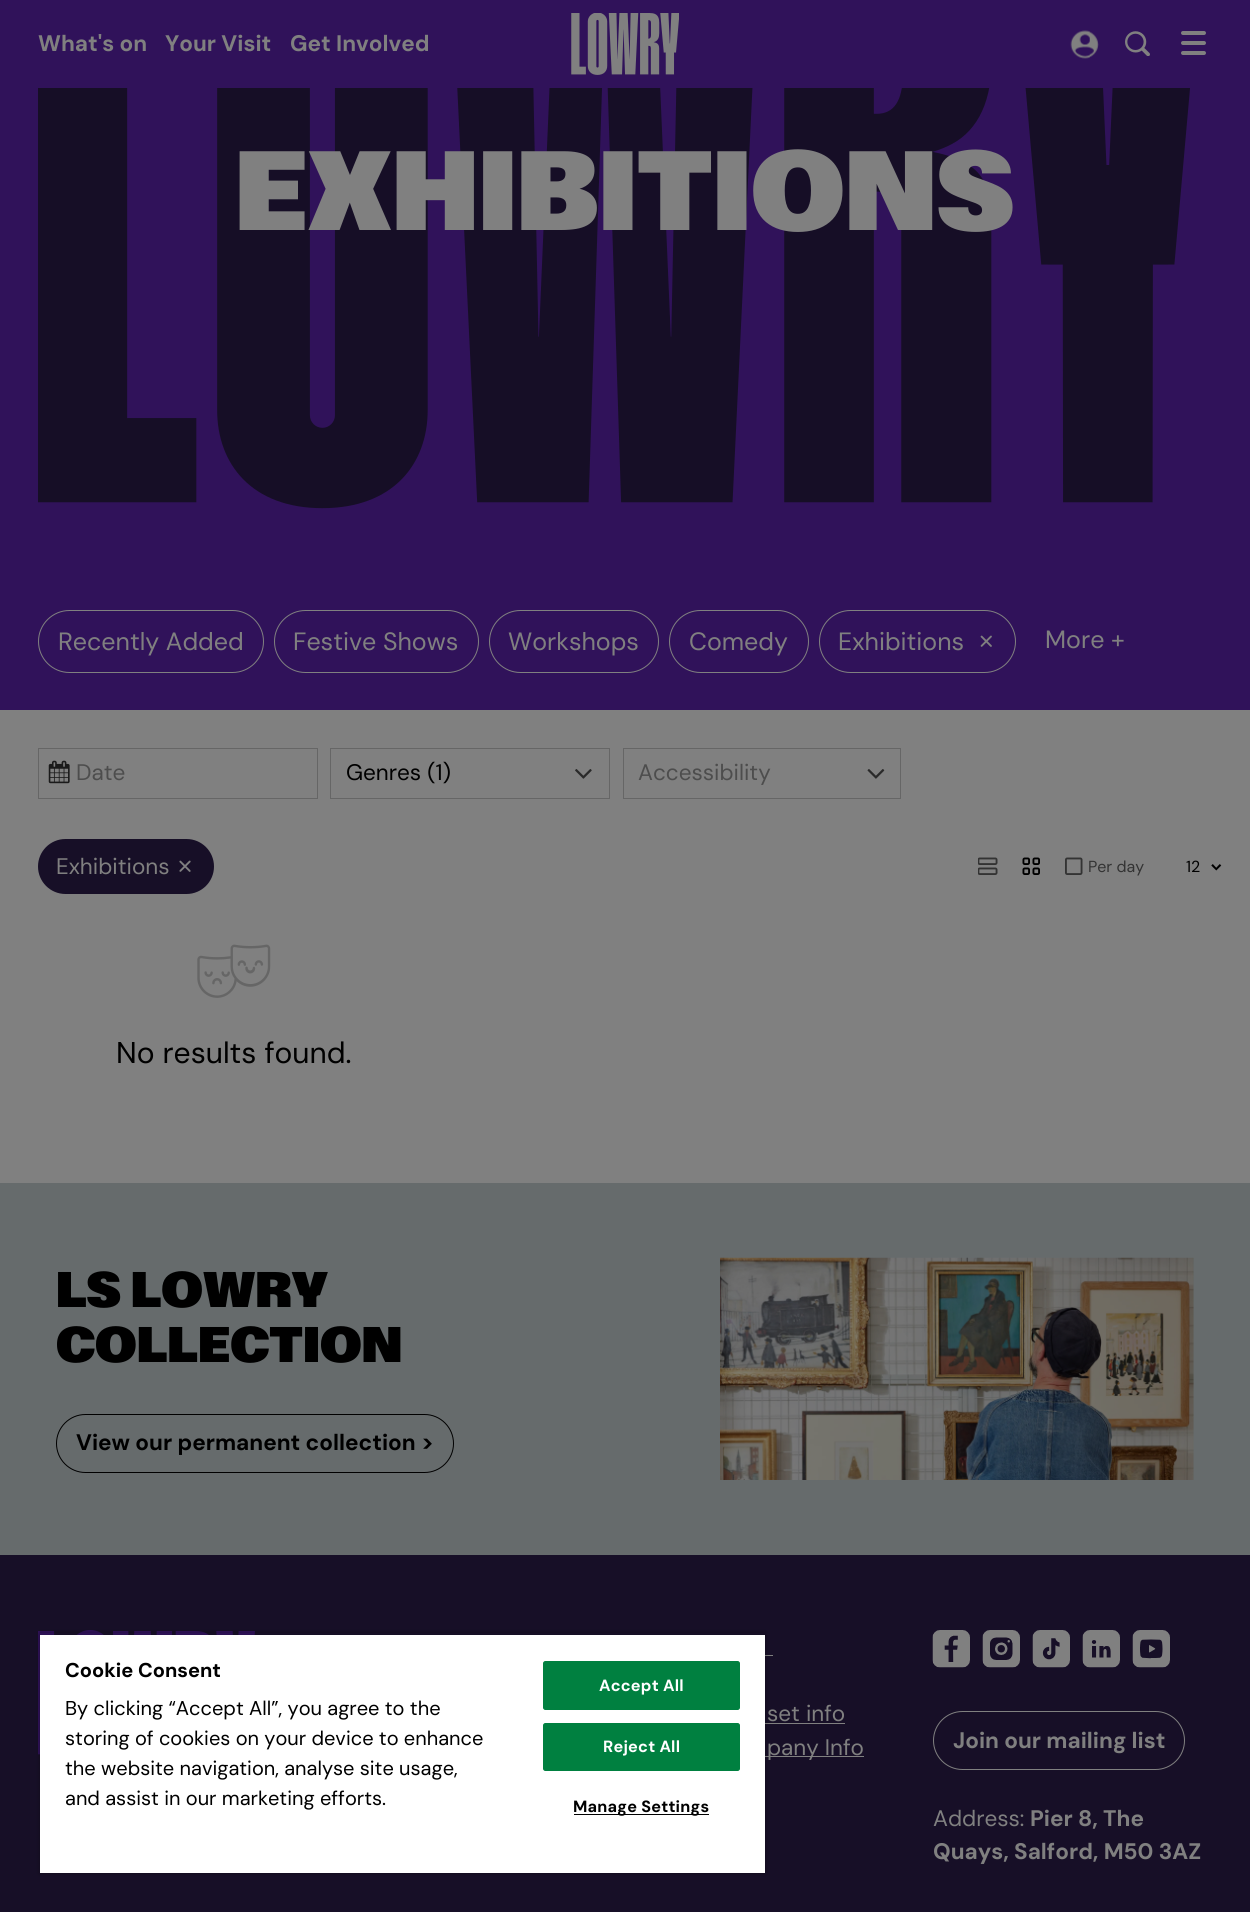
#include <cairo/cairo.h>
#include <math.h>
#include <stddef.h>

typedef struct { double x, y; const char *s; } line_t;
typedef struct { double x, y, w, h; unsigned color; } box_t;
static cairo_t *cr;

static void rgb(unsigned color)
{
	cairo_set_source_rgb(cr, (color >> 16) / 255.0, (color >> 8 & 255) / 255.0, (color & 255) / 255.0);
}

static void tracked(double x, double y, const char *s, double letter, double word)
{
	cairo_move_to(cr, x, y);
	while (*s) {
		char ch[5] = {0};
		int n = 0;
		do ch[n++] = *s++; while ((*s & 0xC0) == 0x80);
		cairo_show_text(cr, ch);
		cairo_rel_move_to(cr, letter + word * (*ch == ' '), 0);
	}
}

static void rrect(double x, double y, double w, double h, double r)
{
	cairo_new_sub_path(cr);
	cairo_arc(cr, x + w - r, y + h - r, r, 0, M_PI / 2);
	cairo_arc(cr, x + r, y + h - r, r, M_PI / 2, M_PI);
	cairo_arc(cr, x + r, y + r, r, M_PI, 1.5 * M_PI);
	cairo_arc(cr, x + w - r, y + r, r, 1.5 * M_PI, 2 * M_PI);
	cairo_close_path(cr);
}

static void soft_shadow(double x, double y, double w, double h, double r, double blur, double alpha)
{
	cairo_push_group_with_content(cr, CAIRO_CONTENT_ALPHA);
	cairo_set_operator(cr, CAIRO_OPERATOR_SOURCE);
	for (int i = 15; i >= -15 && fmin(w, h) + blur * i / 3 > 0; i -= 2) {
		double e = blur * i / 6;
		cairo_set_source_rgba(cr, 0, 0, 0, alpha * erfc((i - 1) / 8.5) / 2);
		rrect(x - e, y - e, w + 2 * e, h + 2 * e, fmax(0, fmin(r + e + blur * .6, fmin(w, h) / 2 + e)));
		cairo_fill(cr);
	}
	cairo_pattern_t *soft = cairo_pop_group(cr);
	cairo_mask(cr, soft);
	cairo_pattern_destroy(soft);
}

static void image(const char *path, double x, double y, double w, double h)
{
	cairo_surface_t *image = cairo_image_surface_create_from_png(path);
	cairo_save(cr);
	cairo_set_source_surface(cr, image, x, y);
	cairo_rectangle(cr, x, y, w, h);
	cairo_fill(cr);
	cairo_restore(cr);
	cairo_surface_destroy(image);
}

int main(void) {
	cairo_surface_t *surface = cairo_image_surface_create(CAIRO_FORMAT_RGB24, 1250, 1912);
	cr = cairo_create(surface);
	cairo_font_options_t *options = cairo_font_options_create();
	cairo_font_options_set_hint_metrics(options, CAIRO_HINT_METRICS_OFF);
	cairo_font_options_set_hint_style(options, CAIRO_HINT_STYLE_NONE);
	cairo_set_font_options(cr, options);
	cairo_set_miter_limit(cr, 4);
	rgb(0x808080);
	cairo_paint(cr);
	rgb(0x30125a);
	cairo_rectangle(cr, 0, 0, 1250, 710);
	cairo_fill(cr);
	image("img/1.png", 571, 13, 108, 62);
	image("img/2.png", 1070, 30, 29, 29);
	image("img/3.png", 1125, 31, 25, 25);
	rgb(0x808080);
	rrect(1181, 31, 25, 4, 2);
	cairo_fill(cr);
	rrect(1181, 41, 25, 4, 2);
	cairo_fill(cr);
	rrect(1181, 51, 25, 4, 2);
	cairo_fill(cr);
	image("img/4.png", 38, 88, 1152, 421);
	rrect(38.5, 610.5, 225, 62, 31);
	cairo_set_line_width(cr, 1);
	cairo_stroke(cr);
	rrect(274.5, 610.5, 204, 62, 31);
	cairo_stroke(cr);
	rrect(489.5, 610.5, 169, 62, 31);
	cairo_stroke(cr);
	rrect(669.5, 610.5, 139, 62, 31);
	cairo_stroke(cr);
	rrect(819.5, 610.5, 196, 62, 31);
	cairo_stroke(cr);
	image("img/5.png", 980, 635, 12, 12);
	cairo_rectangle(cr, 38.5, 748.5, 279, 50);
	rgb(0x666666);
	cairo_stroke(cr);
	image("img/6.png", 48, 760, 22, 24);
	cairo_rectangle(cr, 330.5, 748.5, 279, 50);
	cairo_stroke(cr);
	image("img/7.png", 575, 769, 17, 10);
	cairo_rectangle(cr, 623.5, 748.5, 277, 50);
	cairo_stroke(cr);
	image("img/8.png", 867, 769, 18, 10);
	rgb(0x170f27);
	rrect(38, 839, 176, 55, 27.5);
	cairo_fill(cr);
	image("img/9.png", 179, 860, 12, 12);
	image("img/10.png", 978, 857, 20, 18);
	image("img/11.png", 1022, 857, 18, 18);
	image("img/12.png", 1065, 857, 18, 18);
	image("img/13.png", 1211, 864, 11, 7);
	image("img/14.png", 197, 944, 74, 54);
	rgb(0x666b6c);
	cairo_rectangle(cr, 0, 1183, 1250, 372);
	cairo_fill(cr);
	rrect(56.5, 1414.5, 397, 58, 29);
	rgb(0x000000);
	cairo_stroke(cr);
	image("img/15.png", 720, 1257, 474, 223);
	rgb(0x170f27);
	cairo_rectangle(cr, 0, 1555, 1250, 357);
	cairo_fill(cr);
	image("img/16.png", 38, 1630, 217, 125);
	{
		static const box_t items[] = {
			{765, 1655, 8, 1, 0x808080},
			{765, 1723, 80, 1, 0x808080},
			{765, 1756, 99, 1, 0x808080},
		};
		for (size_t i = 0; i < sizeof items / sizeof *items; i++) {
			rgb(items[i].color);
			cairo_rectangle(cr, items[i].x, items[i].y, items[i].w, items[i].h);
			cairo_fill(cr);
		}
	}
	image("img/17.png", 932, 1630, 38, 38);
	image("img/18.png", 982, 1630, 38, 38);
	image("img/19.png", 1032, 1630, 38, 38);
	image("img/20.png", 1082, 1630, 38, 38);
	image("img/21.png", 1132, 1630, 38, 38);
	rrect(933.5, 1711.5, 251, 58, 29);
	cairo_stroke(cr);
	cairo_save(cr);
	cairo_set_fill_rule(cr, CAIRO_FILL_RULE_EVEN_ODD);
	cairo_new_path(cr);
	cairo_move_to(cr, 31, 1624);
	cairo_line_to(cr, 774, 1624);
	cairo_line_to(cr, 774, 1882);
	cairo_line_to(cr, 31, 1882);
	cairo_close_path(cr);
	cairo_move_to(cr, 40, 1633);
	cairo_line_to(cr, 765, 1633);
	cairo_line_to(cr, 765, 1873);
	cairo_line_to(cr, 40, 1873);
	cairo_close_path(cr);
	cairo_clip(cr);
	rgb(0x000000);
	soft_shadow(40, 1633, 725, 240, 0, 2.5, 0.35);
	cairo_restore(cr);
	cairo_save(cr);
	cairo_rectangle(cr, 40, 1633, 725, 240);
	cairo_clip(cr);
	rgb(0x000000);
	soft_shadow(40, 1635, 725, 238, 0, 2.5, 0.2);
	cairo_restore(cr);
	rgb(0xffffff);
	cairo_rectangle(cr, 40, 1635, 725, 238);
	cairo_fill(cr);
	rgb(0x008040);
	rrect(543.5, 1661.5, 196, 48, 2);
	cairo_fill_preserve(cr);
	cairo_stroke(cr);
	rrect(543.5, 1723.5, 196, 47, 2);
	cairo_fill_preserve(cr);
	cairo_stroke(cr);
	rgb(0x000000);
	cairo_rectangle(cr, 574, 1814, 135, 1);
	cairo_fill(cr);
	cairo_select_font_face(cr, "DM Sans", CAIRO_FONT_SLANT_NORMAL, CAIRO_FONT_WEIGHT_BOLD);
	cairo_set_font_size(cr, 22.5);
	rgb(0x808080);
	{
		static const line_t items[] = {
			{38, 51, "What's on"},
			{165, 51, "Your Visit"},
			{290, 51, "Get Involved"},
		};
		for (size_t i = 0; i < sizeof items / sizeof *items; i++) {
			cairo_move_to(cr, items[i].x, items[i].y);
			cairo_show_text(cr, items[i].s);
		}
	}
	cairo_select_font_face(cr, "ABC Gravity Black", CAIRO_FONT_SLANT_NORMAL, CAIRO_FONT_WEIGHT_NORMAL);
	cairo_set_font_size(cr, 112.5);
	cairo_move_to(cr, 235, 230);
	cairo_show_text(cr, "EXHIBITIONS");
	cairo_select_font_face(cr, "DM Sans", CAIRO_FONT_SLANT_NORMAL, CAIRO_FONT_WEIGHT_NORMAL);
	cairo_set_font_size(cr, 25);
	{
		static const line_t items[] = {
			{58, 650, "Recently Added"},
			{293, 650, "Festive Shows"},
			{508, 650, "Workshops"},
			{689, 650, "Comedy"},
			{838, 650, "Exhibitions"},
			{1045, 648, "More +"},
		};
		for (size_t i = 0; i < sizeof items / sizeof *items; i++) {
			cairo_move_to(cr, items[i].x, items[i].y);
			cairo_show_text(cr, items[i].s);
		}
	}
	cairo_set_font_size(cr, 22.5);
	rgb(0x4d4d4d);
	cairo_move_to(cr, 76, 780);
	cairo_show_text(cr, "Date");
	rgb(0x000000);
	cairo_move_to(cr, 346, 780);
	cairo_show_text(cr, "Genres (1)");
	rgb(0x4d4d4d);
	cairo_move_to(cr, 638, 780);
	cairo_show_text(cr, "Accessibility");
	rgb(0x808080);
	cairo_move_to(cr, 56, 874);
	cairo_show_text(cr, "Exhibitions");
	cairo_set_font_size(cr, 16);
	rgb(0x333333);
	cairo_move_to(cr, 1088, 872);
	cairo_show_text(cr, "Per day");
	rgb(0x000000);
	cairo_move_to(cr, 1186, 872);
	cairo_show_text(cr, "12");
	cairo_set_font_size(cr, 30);
	cairo_move_to(cr, 116, 1063);
	cairo_show_text(cr, "No results found.");
	cairo_select_font_face(cr, "ABC Gravity Black", CAIRO_FONT_SLANT_NORMAL, CAIRO_FONT_WEIGHT_NORMAL);
	cairo_set_font_size(cr, 50);
	cairo_move_to(cr, 56, 1307);
	cairo_show_text(cr, "LS LOWRY");
	cairo_move_to(cr, 56, 1362);
	cairo_show_text(cr, "COLLECTION");
	cairo_select_font_face(cr, "DM Sans", CAIRO_FONT_SLANT_NORMAL, CAIRO_FONT_WEIGHT_BOLD);
	cairo_set_font_size(cr, 22.5);
	cairo_move_to(cr, 76, 1450);
	cairo_show_text(cr, "View our permanent collection >");
	cairo_select_font_face(cr, "DM Sans", CAIRO_FONT_SLANT_NORMAL, CAIRO_FONT_WEIGHT_NORMAL);
	rgb(0x808080);
	cairo_move_to(cr, 767, 1721);
	cairo_show_text(cr, "set info");
	cairo_move_to(cr, 767, 1755);
	cairo_show_text(cr, "pany Info");
	cairo_select_font_face(cr, "DM Sans", CAIRO_FONT_SLANT_NORMAL, CAIRO_FONT_WEIGHT_BOLD);
	cairo_move_to(cr, 953, 1748);
	cairo_show_text(cr, "Join our mailing list");
	cairo_select_font_face(cr, "DM Sans", CAIRO_FONT_SLANT_NORMAL, CAIRO_FONT_WEIGHT_NORMAL);
	cairo_move_to(cr, 933, 1826);
	cairo_show_text(cr, "Address:");
	cairo_select_font_face(cr, "DM Sans", CAIRO_FONT_SLANT_NORMAL, CAIRO_FONT_WEIGHT_BOLD);
	cairo_move_to(cr, 1030, 1826);
	cairo_show_text(cr, "Pier 8, The");
	cairo_move_to(cr, 933, 1859);
	cairo_show_text(cr, "Quays, Salford, M50 3AZ");
	cairo_set_font_size(cr, 20);
	rgb(0x000000);
	cairo_move_to(cr, 65, 1677);
	cairo_show_text(cr, "Cookie Consent");
	cairo_select_font_face(cr, "DM Sans", CAIRO_FONT_SLANT_NORMAL, CAIRO_FONT_WEIGHT_NORMAL);
	{
		static const line_t items[] = {
			{65, 1715, "By clicking “Accept All”, you agree to the"},
			{65, 1745, "storing of cookies on your device to enhance"},
			{65, 1775, "the website navigation, analyse site usage,"},
			{65, 1805, "and assist in our marketing efforts."},
		};
		for (size_t i = 0; i < sizeof items / sizeof *items; i++) {
			cairo_move_to(cr, items[i].x, items[i].y);
			cairo_show_text(cr, items[i].s);
		}
	}
	cairo_select_font_face(cr, "DM Sans", CAIRO_FONT_SLANT_NORMAL, CAIRO_FONT_WEIGHT_BOLD);
	cairo_set_font_size(cr, 16.25);
	rgb(0xffffff);
	tracked(599, 1691, "Accept All", 0.2, 0);
	tracked(603, 1752, "Reject All", 0.2, 0);
	rgb(0x000000);
	tracked(573, 1812, "Manage Settings", 0.2, 0);
	cairo_surface_write_to_png(surface, "page.png");
	cairo_font_options_destroy(options);
	cairo_destroy(cr);
	cairo_surface_destroy(surface);
	return 0;
}
